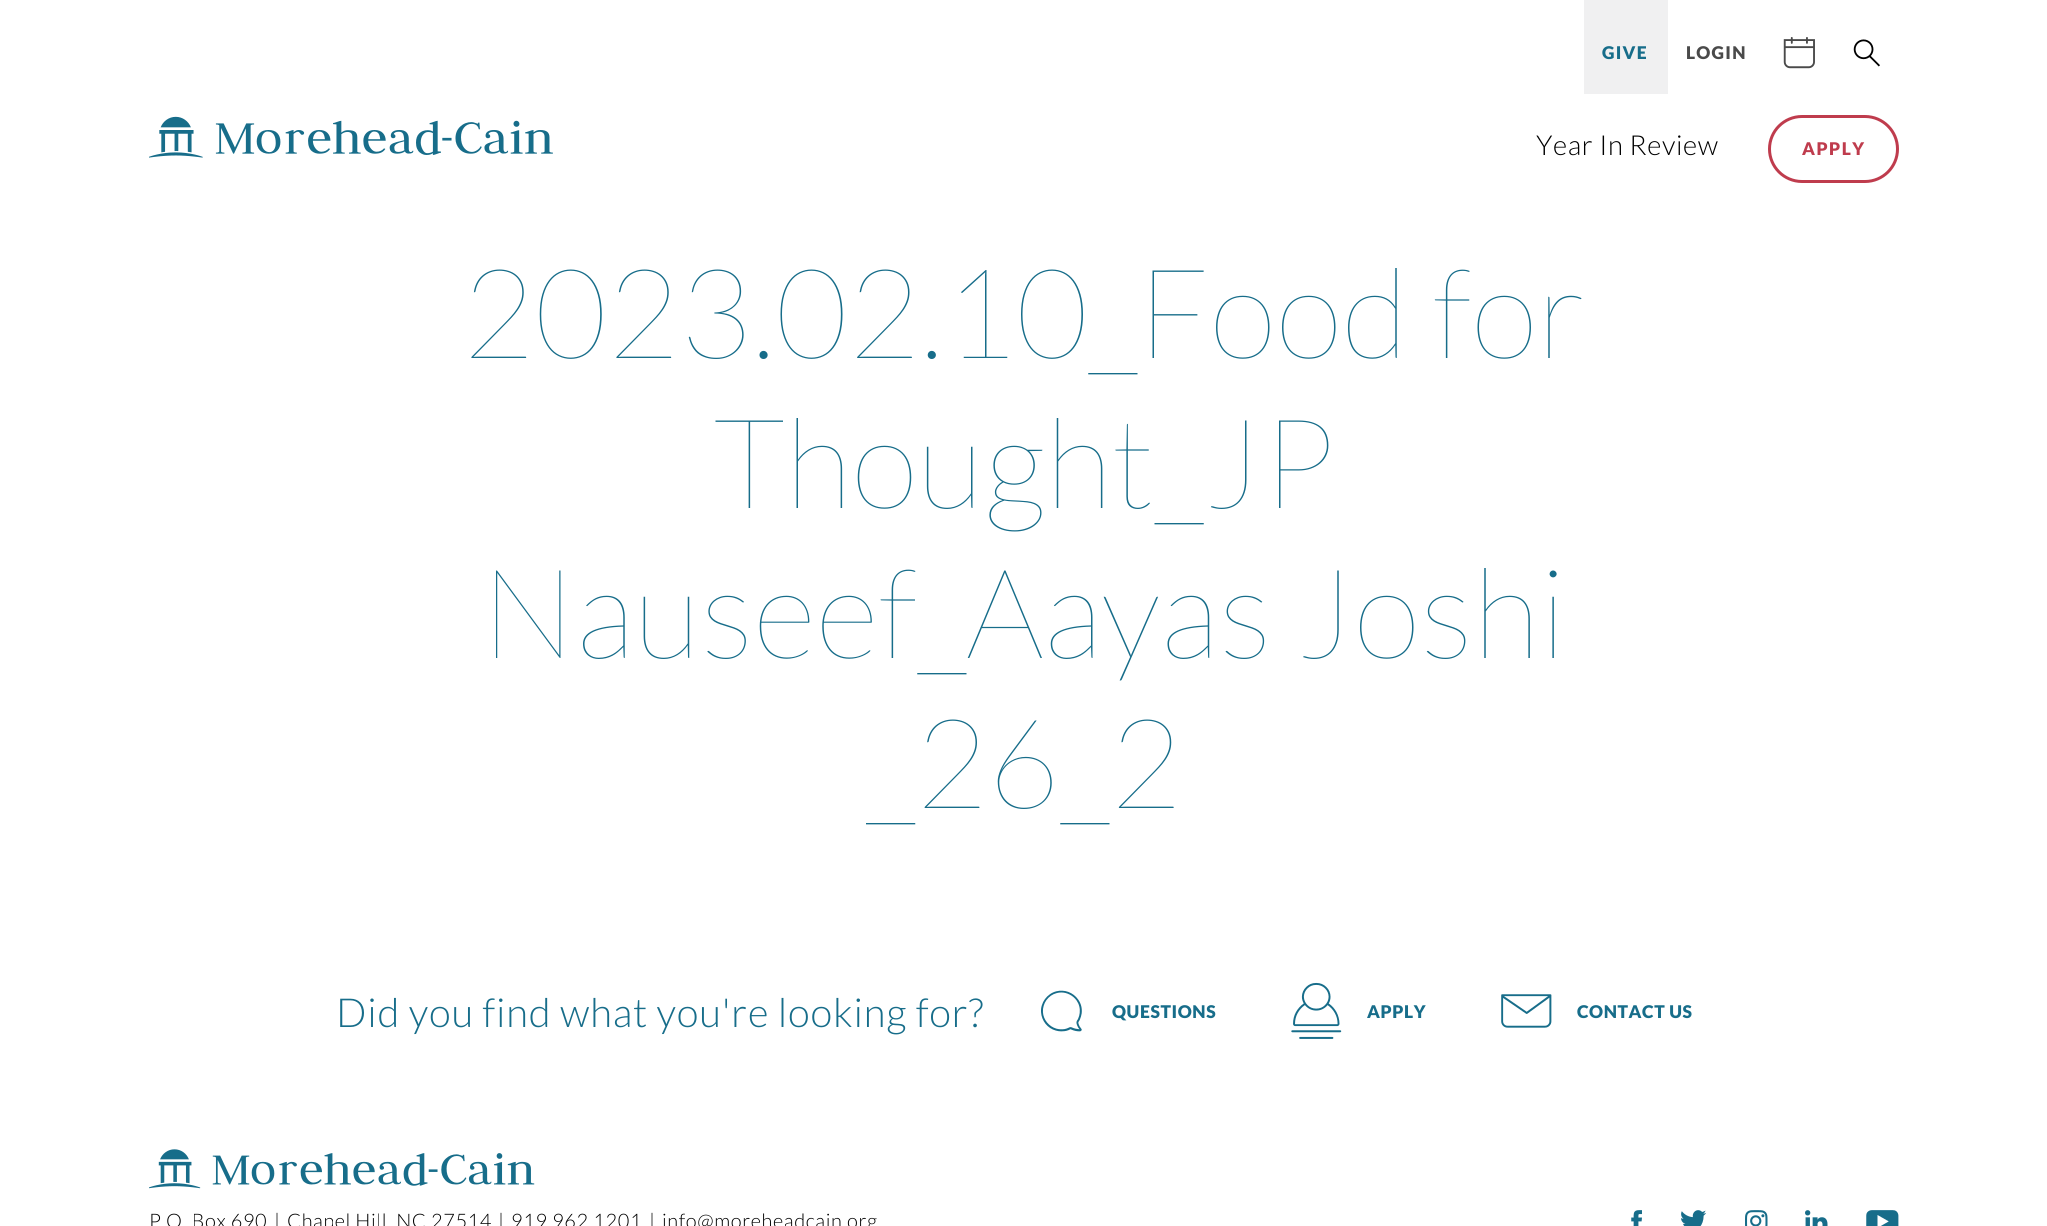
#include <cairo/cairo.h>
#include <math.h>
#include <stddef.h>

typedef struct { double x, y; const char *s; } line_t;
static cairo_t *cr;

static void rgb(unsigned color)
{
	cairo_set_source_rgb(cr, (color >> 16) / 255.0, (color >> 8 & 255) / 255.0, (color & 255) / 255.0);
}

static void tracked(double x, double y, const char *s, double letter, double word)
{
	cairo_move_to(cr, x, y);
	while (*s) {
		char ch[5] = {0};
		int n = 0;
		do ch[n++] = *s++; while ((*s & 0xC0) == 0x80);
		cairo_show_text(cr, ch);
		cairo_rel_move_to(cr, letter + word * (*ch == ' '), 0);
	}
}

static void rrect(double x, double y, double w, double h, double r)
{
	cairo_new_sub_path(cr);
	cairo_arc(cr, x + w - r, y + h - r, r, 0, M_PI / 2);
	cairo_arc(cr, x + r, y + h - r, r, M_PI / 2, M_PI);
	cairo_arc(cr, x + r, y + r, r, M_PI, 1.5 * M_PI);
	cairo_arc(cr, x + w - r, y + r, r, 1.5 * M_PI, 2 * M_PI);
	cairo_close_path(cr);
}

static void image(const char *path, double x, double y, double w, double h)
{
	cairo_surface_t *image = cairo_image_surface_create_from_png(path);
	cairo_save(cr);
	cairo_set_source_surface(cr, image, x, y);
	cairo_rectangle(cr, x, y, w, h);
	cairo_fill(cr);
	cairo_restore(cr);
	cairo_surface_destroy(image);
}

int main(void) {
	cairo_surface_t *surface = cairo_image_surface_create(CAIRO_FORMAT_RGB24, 2047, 1226);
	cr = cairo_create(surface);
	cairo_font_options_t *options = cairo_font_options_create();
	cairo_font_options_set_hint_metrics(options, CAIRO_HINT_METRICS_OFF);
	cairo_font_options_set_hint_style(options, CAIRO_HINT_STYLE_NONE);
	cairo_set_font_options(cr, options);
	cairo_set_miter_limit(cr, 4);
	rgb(0xffffff);
	cairo_paint(cr);
	image("img/1.png", 149, 116, 404, 42);
	rgb(0xf0f0f1);
	cairo_rectangle(cr, 1584, 0, 84, 94);
	cairo_fill(cr);
	image("img/2.png", 1783, 37, 32, 32);
	image("img/3.png", 1853, 39, 27, 28);
	rrect(1769.5, 116.5, 128, 65, 32.5);
	rgb(0xbf3c4d);
	cairo_set_line_width(cr, 3);
	cairo_stroke(cr);
	image("img/4.png", 1041, 990, 41, 42);
	image("img/5.png", 1291, 982, 51, 57);
	image("img/6.png", 1501, 994, 51, 34);
	image("img/7.png", 149, 1149, 386, 40);
	image("img/8.png", 1631, 1210, 11, 16);
	image("img/9.png", 1681, 1210, 26, 16);
	image("img/10.png", 1745, 1210, 23, 16);
	image("img/11.png", 1805, 1210, 23, 16);
	image("img/12.png", 1866, 1210, 33, 16);
	cairo_select_font_face(cr, "Lato Black", CAIRO_FONT_SLANT_NORMAL, CAIRO_FONT_WEIGHT_NORMAL);
	cairo_set_font_size(cr, 17.5);
	rgb(0x176d8a);
	tracked(1602, 59, "GIVE", 1.25, 0);
	rgb(0x4a4a4a);
	tracked(1686, 59, "LOGIN", 1.25, 0);
	cairo_select_font_face(cr, "Lato Light", CAIRO_FONT_SLANT_NORMAL, CAIRO_FONT_WEIGHT_NORMAL);
	cairo_set_font_size(cr, 27.5);
	rgb(0x000000);
	tracked(1536, 155, "Year In Review", 0.6, 0);
	cairo_select_font_face(cr, "Lato Black", CAIRO_FONT_SLANT_NORMAL, CAIRO_FONT_WEIGHT_NORMAL);
	cairo_set_font_size(cr, 17.5);
	rgb(0xbf3c4d);
	tracked(1802, 155, "APPLY", 1.5, 0);
	cairo_select_font_face(cr, "Lato Thin", CAIRO_FONT_SLANT_NORMAL, CAIRO_FONT_WEIGHT_NORMAL);
	cairo_set_font_size(cr, 125);
	rgb(0x176d8a);
	{
		static const line_t items[] = {
			{462, 358, "2023.02.10_Food for"},
			{713, 508, "Thought_JP"},
			{481, 658, "Nauseef_Aayas Joshi"},
			{866, 808, "_26_2"},
		};
		for (size_t i = 0; i < sizeof items / sizeof *items; i++) {
			cairo_move_to(cr, items[i].x, items[i].y);
			cairo_show_text(cr, items[i].s);
		}
	}
	cairo_select_font_face(cr, "Lato Light", CAIRO_FONT_SLANT_NORMAL, CAIRO_FONT_WEIGHT_NORMAL);
	cairo_set_font_size(cr, 40);
	tracked(336, 1027, "Did you find what you're looking for?", 0.8, 0);
	cairo_select_font_face(cr, "Lato Black", CAIRO_FONT_SLANT_NORMAL, CAIRO_FONT_WEIGHT_NORMAL);
	cairo_set_font_size(cr, 17.5);
	{
		static const line_t items[] = {
			{1112, 1018, "QUESTIONS"},
			{1367, 1018, "APPLY"},
			{1577, 1018, "CONTACT US"},
		};
		for (size_t i = 0; i < sizeof items / sizeof *items; i++) {
			tracked(items[i].x, items[i].y, items[i].s, 0.6, 0);
		}
	}
	cairo_select_font_face(cr, "Lato Light", CAIRO_FONT_SLANT_NORMAL, CAIRO_FONT_WEIGHT_NORMAL);
	cairo_set_font_size(cr, 20);
	rgb(0x000000);
	{
		static const line_t items[] = {
			{149, 1228, "P.O. Box 690"},
			{274, 1228, "|"},
			{287, 1228, "Chapel Hill, NC 27514"},
			{498, 1228, "|"},
			{511, 1228, "919.962.1201"},
			{649, 1228, "|"},
			{662, 1228, "info@moreheadcain.org"},
		};
		for (size_t i = 0; i < sizeof items / sizeof *items; i++) {
			tracked(items[i].x, items[i].y, items[i].s, 0.6, 0);
		}
	}
	cairo_surface_write_to_png(surface, "page.png");
	cairo_font_options_destroy(options);
	cairo_destroy(cr);
	cairo_surface_destroy(surface);
	return 0;
}
